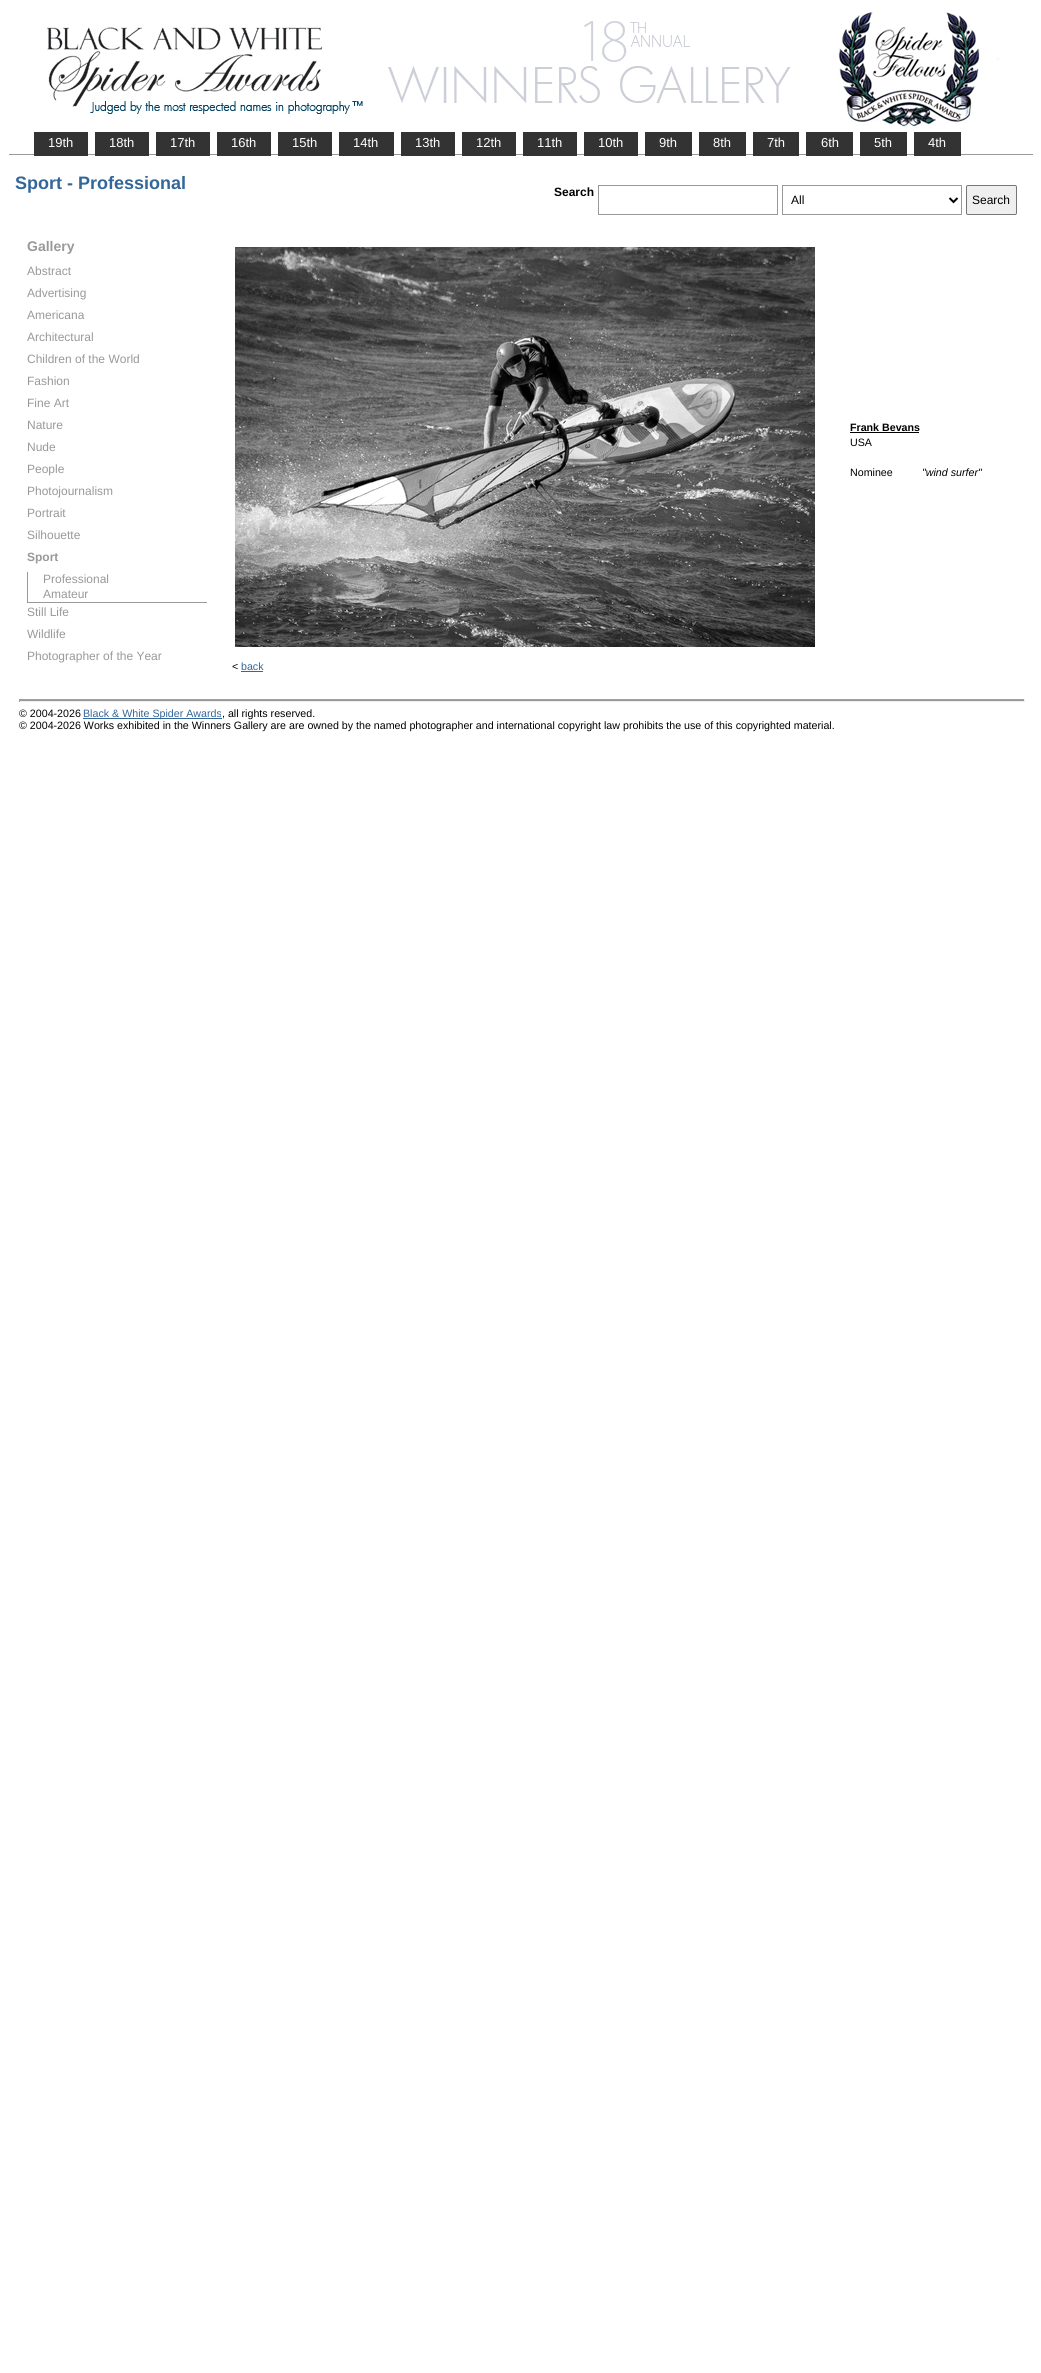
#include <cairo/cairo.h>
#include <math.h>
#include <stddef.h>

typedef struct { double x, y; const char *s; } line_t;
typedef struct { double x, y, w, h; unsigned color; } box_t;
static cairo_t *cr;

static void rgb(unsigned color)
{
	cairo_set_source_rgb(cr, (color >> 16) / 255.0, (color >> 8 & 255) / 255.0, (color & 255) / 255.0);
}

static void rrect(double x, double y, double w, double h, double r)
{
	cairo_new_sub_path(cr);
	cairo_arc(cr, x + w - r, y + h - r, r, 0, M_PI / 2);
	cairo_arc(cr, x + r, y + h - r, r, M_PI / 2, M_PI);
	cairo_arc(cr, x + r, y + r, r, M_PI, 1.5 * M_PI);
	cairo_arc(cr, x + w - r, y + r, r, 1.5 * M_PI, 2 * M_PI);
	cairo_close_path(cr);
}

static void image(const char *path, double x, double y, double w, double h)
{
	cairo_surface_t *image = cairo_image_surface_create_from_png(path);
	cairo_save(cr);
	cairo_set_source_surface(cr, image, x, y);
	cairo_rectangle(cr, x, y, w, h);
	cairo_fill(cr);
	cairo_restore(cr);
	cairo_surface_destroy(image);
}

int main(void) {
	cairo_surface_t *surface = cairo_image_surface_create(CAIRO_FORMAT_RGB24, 1041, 2373);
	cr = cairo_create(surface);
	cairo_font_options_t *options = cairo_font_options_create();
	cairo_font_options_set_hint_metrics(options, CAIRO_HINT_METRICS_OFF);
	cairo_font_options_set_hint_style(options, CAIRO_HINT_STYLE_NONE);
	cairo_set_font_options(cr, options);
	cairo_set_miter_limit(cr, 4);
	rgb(0xffffff);
	cairo_paint(cr);
	image("img/1.png", 46, 12, 953, 118);
	{
		static const box_t items[] = {
			{9, 154, 1024, 1, 0x999999},
			{34, 132, 54, 24, 0x333333},
			{95, 132, 54, 24, 0x333333},
			{156, 132, 54, 24, 0x333333},
			{217, 132, 54, 24, 0x333333},
			{278, 132, 54, 24, 0x333333},
			{339, 132, 55, 24, 0x333333},
			{401, 132, 54, 24, 0x333333},
			{462, 132, 54, 24, 0x333333},
			{523, 132, 54, 24, 0x333333},
			{584, 132, 54, 24, 0x333333},
			{645, 132, 47, 24, 0x333333},
			{699, 132, 47, 24, 0x333333},
			{753, 132, 46, 24, 0x333333},
			{806, 132, 47, 24, 0x333333},
			{860, 132, 47, 24, 0x333333},
			{914, 132, 47, 24, 0x333333},
		};
		for (size_t i = 0; i < sizeof items / sizeof *items; i++) {
			rgb(items[i].color);
			cairo_rectangle(cr, items[i].x, items[i].y, items[i].w, items[i].h);
			cairo_fill(cr);
		}
	}
	cairo_rectangle(cr, 598.5, 185.5, 179, 29);
	rgb(0x999999);
	cairo_set_line_width(cr, 1);
	cairo_stroke(cr);
	cairo_rectangle(cr, 782.5, 185.5, 179, 29);
	cairo_stroke(cr);
	cairo_new_path(cr);
	cairo_move_to(cr, 949.5, 198);
	cairo_line_to(cr, 953.5, 202);
	cairo_line_to(cr, 957.5, 198);
	rgb(0x000000);
	cairo_set_line_width(cr, 2);
	cairo_stroke(cr);
	rgb(0xefefef);
	rrect(966.5, 185.5, 50, 29, 1.5);
	cairo_fill_preserve(cr);
	rgb(0x767676);
	cairo_set_line_width(cr, 1);
	cairo_stroke(cr);
	rgb(0x999999);
	cairo_rectangle(cr, 27, 602, 180, 1);
	cairo_fill(cr);
	cairo_rectangle(cr, 27, 572, 1, 31);
	cairo_fill(cr);
	image("img/2.png", 235, 247, 580, 400);
	{
		static const box_t items[] = {
			{850, 432, 69, 1, 0x000000},
			{241, 671, 22, 1, 0x336699},
			{19, 700, 1006, 1, 0x999999},
			{19, 699, 1006, 1, 0x9f9f9f},
			{1024, 699, 1, 3, 0xeeeeee},
			{19, 701, 1006, 1, 0xeeeeee},
			{19, 699, 1, 3, 0x9f9f9f},
			{83, 718, 139, 1, 0x336699},
		};
		for (size_t i = 0; i < sizeof items / sizeof *items; i++) {
			rgb(items[i].color);
			cairo_rectangle(cr, items[i].x, items[i].y, items[i].w, items[i].h);
			cairo_fill(cr);
		}
	}
	cairo_select_font_face(cr, "Liberation Sans", CAIRO_FONT_SLANT_NORMAL, CAIRO_FONT_WEIGHT_NORMAL);
	cairo_set_font_size(cr, 13);
	rgb(0xffffff);
	{
		static const line_t items[] = {
			{48, 147, "19th"},
			{109, 147, "18th"},
			{170, 147, "17th"},
			{231, 147, "16th"},
			{292, 147, "15th"},
			{353, 147, "14th"},
			{415, 147, "13th"},
			{476, 147, "12th"},
			{537, 147, "11th"},
			{598, 147, "10th"},
			{659, 147, "9th"},
			{713, 147, "8th"},
			{767, 147, "7th"},
			{821, 147, "6th"},
			{874, 147, "5th"},
			{928, 147, "4th"},
		};
		for (size_t i = 0; i < sizeof items / sizeof *items; i++) {
			cairo_move_to(cr, items[i].x, items[i].y);
			cairo_show_text(cr, items[i].s);
		}
	}
	cairo_select_font_face(cr, "Liberation Sans", CAIRO_FONT_SLANT_NORMAL, CAIRO_FONT_WEIGHT_BOLD);
	cairo_set_font_size(cr, 18);
	rgb(0x336699);
	cairo_move_to(cr, 15, 189);
	cairo_show_text(cr, "Sport - Professional");
	cairo_set_font_size(cr, 12);
	rgb(0x000000);
	cairo_move_to(cr, 554, 196);
	cairo_show_text(cr, "Search");
	cairo_select_font_face(cr, "Liberation Sans", CAIRO_FONT_SLANT_NORMAL, CAIRO_FONT_WEIGHT_NORMAL);
	cairo_move_to(cr, 791, 204);
	cairo_show_text(cr, "All");
	cairo_move_to(cr, 972, 204);
	cairo_show_text(cr, "Search");
	cairo_select_font_face(cr, "Liberation Sans", CAIRO_FONT_SLANT_NORMAL, CAIRO_FONT_WEIGHT_BOLD);
	cairo_set_font_size(cr, 14);
	rgb(0x999999);
	cairo_move_to(cr, 27, 251);
	cairo_show_text(cr, "Gallery");
	cairo_select_font_face(cr, "Liberation Sans", CAIRO_FONT_SLANT_NORMAL, CAIRO_FONT_WEIGHT_NORMAL);
	cairo_set_font_size(cr, 12);
	{
		static const line_t items[] = {
			{27, 275, "Abstract"},
			{27, 297, "Advertising"},
			{27, 319, "Americana"},
			{27, 341, "Architectural"},
			{27, 363, "Children of the World"},
			{27, 385, "Fashion"},
			{27, 407, "Fine Art"},
			{27, 429, "Nature"},
			{27, 451, "Nude"},
			{27, 473, "People"},
			{27, 495, "Photojournalism"},
			{27, 517, "Portrait"},
			{27, 539, "Silhouette"},
		};
		for (size_t i = 0; i < sizeof items / sizeof *items; i++) {
			cairo_move_to(cr, items[i].x, items[i].y);
			cairo_show_text(cr, items[i].s);
		}
	}
	cairo_select_font_face(cr, "Liberation Sans", CAIRO_FONT_SLANT_NORMAL, CAIRO_FONT_WEIGHT_BOLD);
	cairo_move_to(cr, 27, 561);
	cairo_show_text(cr, "Sport");
	cairo_select_font_face(cr, "Liberation Sans", CAIRO_FONT_SLANT_NORMAL, CAIRO_FONT_WEIGHT_NORMAL);
	{
		static const line_t items[] = {
			{43, 583, "Professional"},
			{43, 598, "Amateur"},
			{27, 616, "Still Life"},
			{27, 638, "Wildlife"},
			{27, 660, "Photographer of the Year"},
		};
		for (size_t i = 0; i < sizeof items / sizeof *items; i++) {
			cairo_move_to(cr, items[i].x, items[i].y);
			cairo_show_text(cr, items[i].s);
		}
	}
	cairo_select_font_face(cr, "Liberation Sans", CAIRO_FONT_SLANT_NORMAL, CAIRO_FONT_WEIGHT_BOLD);
	cairo_set_font_size(cr, 10.67);
	rgb(0x000000);
	cairo_move_to(cr, 850, 431);
	cairo_show_text(cr, "Frank Bevans");
	cairo_select_font_face(cr, "Liberation Sans", CAIRO_FONT_SLANT_NORMAL, CAIRO_FONT_WEIGHT_NORMAL);
	cairo_move_to(cr, 850, 446);
	cairo_show_text(cr, "USA");
	cairo_move_to(cr, 850, 476);
	cairo_show_text(cr, "Nominee");
	cairo_select_font_face(cr, "Liberation Sans", CAIRO_FONT_SLANT_ITALIC, CAIRO_FONT_WEIGHT_NORMAL);
	cairo_move_to(cr, 922, 476);
	cairo_show_text(cr, "\"wind surfer\"");
	cairo_select_font_face(cr, "Liberation Sans", CAIRO_FONT_SLANT_NORMAL, CAIRO_FONT_WEIGHT_NORMAL);
	cairo_move_to(cr, 232, 670);
	cairo_show_text(cr, "<");
	rgb(0x336699);
	cairo_move_to(cr, 241, 670);
	cairo_show_text(cr, "back");
	rgb(0x000000);
	cairo_move_to(cr, 19, 717);
	cairo_show_text(cr, "© 2004-2026");
	rgb(0x336699);
	cairo_move_to(cr, 83, 717);
	cairo_show_text(cr, "Black & White Spider Awards");
	rgb(0x000000);
	cairo_move_to(cr, 222, 717);
	cairo_show_text(cr, ", all rights reserved.");
	cairo_move_to(cr, 19, 729);
	cairo_show_text(cr, "© 2004-2026 Works exhibited in the Winners Gallery are are owned by the named photographer and international copyright law prohibits the use of this copyrighted material.");
	cairo_surface_write_to_png(surface, "page.png");
	cairo_font_options_destroy(options);
	cairo_destroy(cr);
	cairo_surface_destroy(surface);
	return 0;
}
